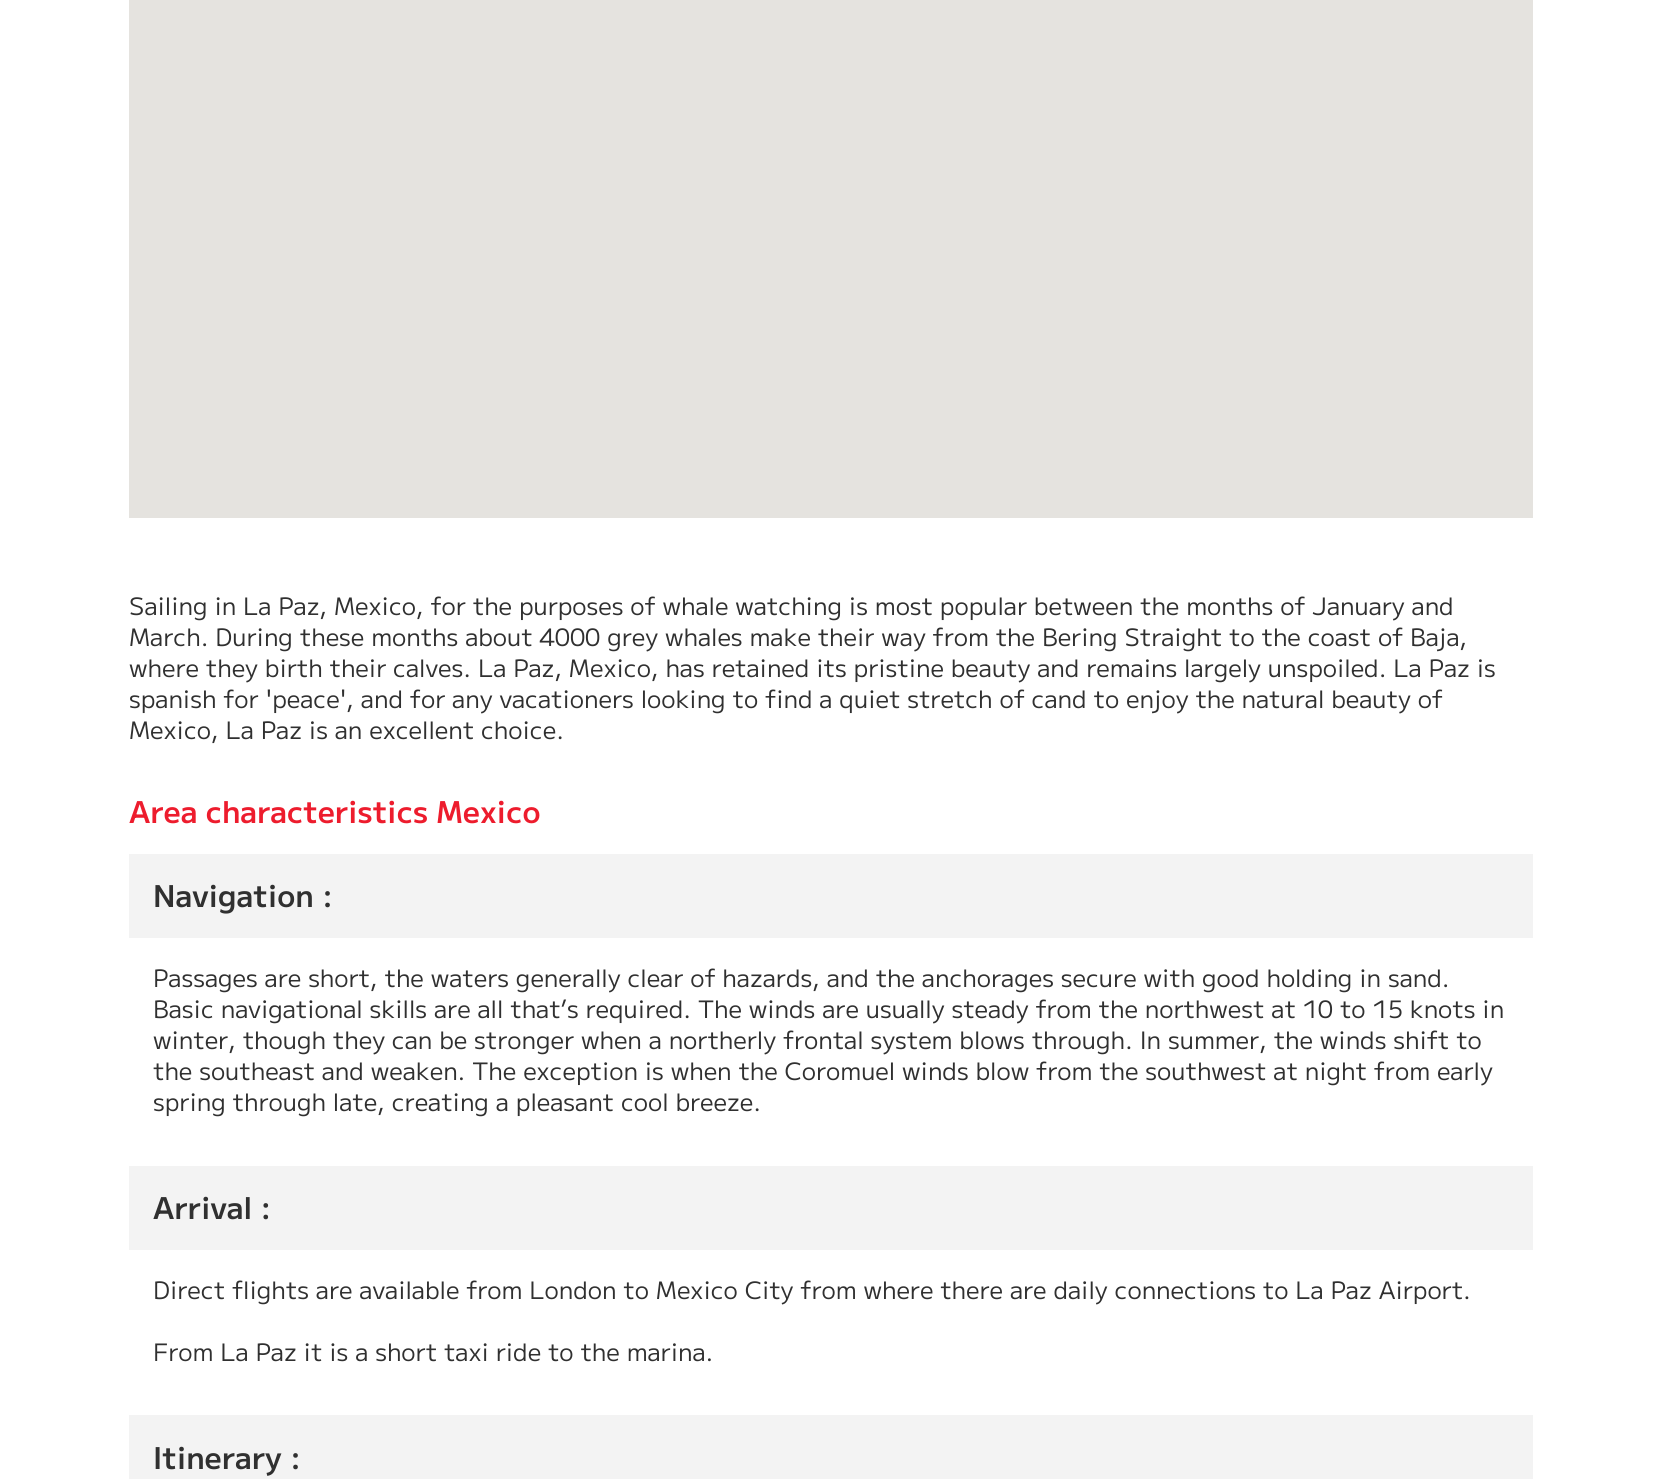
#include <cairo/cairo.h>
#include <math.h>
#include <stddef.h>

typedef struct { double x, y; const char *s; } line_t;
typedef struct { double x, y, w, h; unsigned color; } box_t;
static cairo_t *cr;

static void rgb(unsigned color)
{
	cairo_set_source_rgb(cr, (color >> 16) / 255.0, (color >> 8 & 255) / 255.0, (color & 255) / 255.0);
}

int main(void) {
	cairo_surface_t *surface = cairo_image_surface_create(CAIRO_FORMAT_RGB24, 1662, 1479);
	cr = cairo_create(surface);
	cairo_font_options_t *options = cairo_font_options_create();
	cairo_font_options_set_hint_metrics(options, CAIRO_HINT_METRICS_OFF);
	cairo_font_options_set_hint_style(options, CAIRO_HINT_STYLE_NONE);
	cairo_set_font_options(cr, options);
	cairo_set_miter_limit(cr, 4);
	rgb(0xffffff);
	cairo_paint(cr);
	{
		static const box_t items[] = {
			{129, 0, 1404, 518, 0xe5e3df},
			{129, 854, 1404, 84, 0xf3f3f3},
			{129, 1166, 1404, 84, 0xf3f3f3},
			{129, 1415, 1404, 64, 0xf3f3f3},
		};
		for (size_t i = 0; i < sizeof items / sizeof *items; i++) {
			rgb(items[i].color);
			cairo_rectangle(cr, items[i].x, items[i].y, items[i].w, items[i].h);
			cairo_fill(cr);
		}
	}
	cairo_select_font_face(cr, "M PLUS 2", CAIRO_FONT_SLANT_NORMAL, CAIRO_FONT_WEIGHT_NORMAL);
	cairo_set_font_size(cr, 24);
	rgb(0x303030);
	{
		static const line_t items[] = {
			{129, 615, "Sailing in La Paz, Mexico, for the purposes of whale watching is most popular between the months of January and"},
			{129, 646, "March. During these months about 4000 grey whales make their way from the Bering Straight to the coast of Baja,"},
			{129, 677, "where they birth their calves. La Paz, Mexico, has retained its pristine beauty and remains largely unspoiled. La Paz is"},
			{129, 708, "spanish for 'peace', and for any vacationers looking to find a quiet stretch of cand to enjoy the natural beauty of"},
			{129, 739, "Mexico, La Paz is an excellent choice."},
		};
		for (size_t i = 0; i < sizeof items / sizeof *items; i++) {
			cairo_move_to(cr, items[i].x, items[i].y);
			cairo_show_text(cr, items[i].s);
		}
	}
	cairo_select_font_face(cr, "M PLUS 2 SemiBold", CAIRO_FONT_SLANT_NORMAL, CAIRO_FONT_WEIGHT_NORMAL);
	cairo_set_font_size(cr, 30);
	rgb(0xed1c2d);
	cairo_move_to(cr, 129, 823);
	cairo_show_text(cr, "Area characteristics Mexico");
	rgb(0x303030);
	cairo_move_to(cr, 153, 907);
	cairo_show_text(cr, "Navigation :");
	cairo_select_font_face(cr, "M PLUS 2", CAIRO_FONT_SLANT_NORMAL, CAIRO_FONT_WEIGHT_NORMAL);
	cairo_set_font_size(cr, 24);
	{
		static const line_t items[] = {
			{153, 987, "Passages are short, the waters generally clear of hazards, and the anchorages secure with good holding in sand."},
			{153, 1018, "Basic navigational skills are all that’s required. The winds are usually steady from the northwest at 10 to 15 knots in"},
			{153, 1049, "winter, though they can be stronger when a northerly frontal system blows through. In summer, the winds shift to"},
			{153, 1080, "the southeast and weaken. The exception is when the Coromuel winds blow from the southwest at night from early"},
			{153, 1111, "spring through late, creating a pleasant cool breeze."},
		};
		for (size_t i = 0; i < sizeof items / sizeof *items; i++) {
			cairo_move_to(cr, items[i].x, items[i].y);
			cairo_show_text(cr, items[i].s);
		}
	}
	cairo_select_font_face(cr, "M PLUS 2 SemiBold", CAIRO_FONT_SLANT_NORMAL, CAIRO_FONT_WEIGHT_NORMAL);
	cairo_set_font_size(cr, 30);
	cairo_move_to(cr, 153, 1219);
	cairo_show_text(cr, "Arrival :");
	cairo_select_font_face(cr, "M PLUS 2", CAIRO_FONT_SLANT_NORMAL, CAIRO_FONT_WEIGHT_NORMAL);
	cairo_set_font_size(cr, 24);
	cairo_move_to(cr, 153, 1299);
	cairo_show_text(cr, "Direct flights are available from London to Mexico City from where there are daily connections to La Paz Airport.");
	cairo_move_to(cr, 153, 1361);
	cairo_show_text(cr, "From La Paz it is a short taxi ride to the marina.");
	cairo_select_font_face(cr, "M PLUS 2 SemiBold", CAIRO_FONT_SLANT_NORMAL, CAIRO_FONT_WEIGHT_NORMAL);
	cairo_set_font_size(cr, 30);
	cairo_move_to(cr, 153, 1469);
	cairo_show_text(cr, "Itinerary :");
	cairo_surface_write_to_png(surface, "page.png");
	cairo_font_options_destroy(options);
	cairo_destroy(cr);
	cairo_surface_destroy(surface);
	return 0;
}
